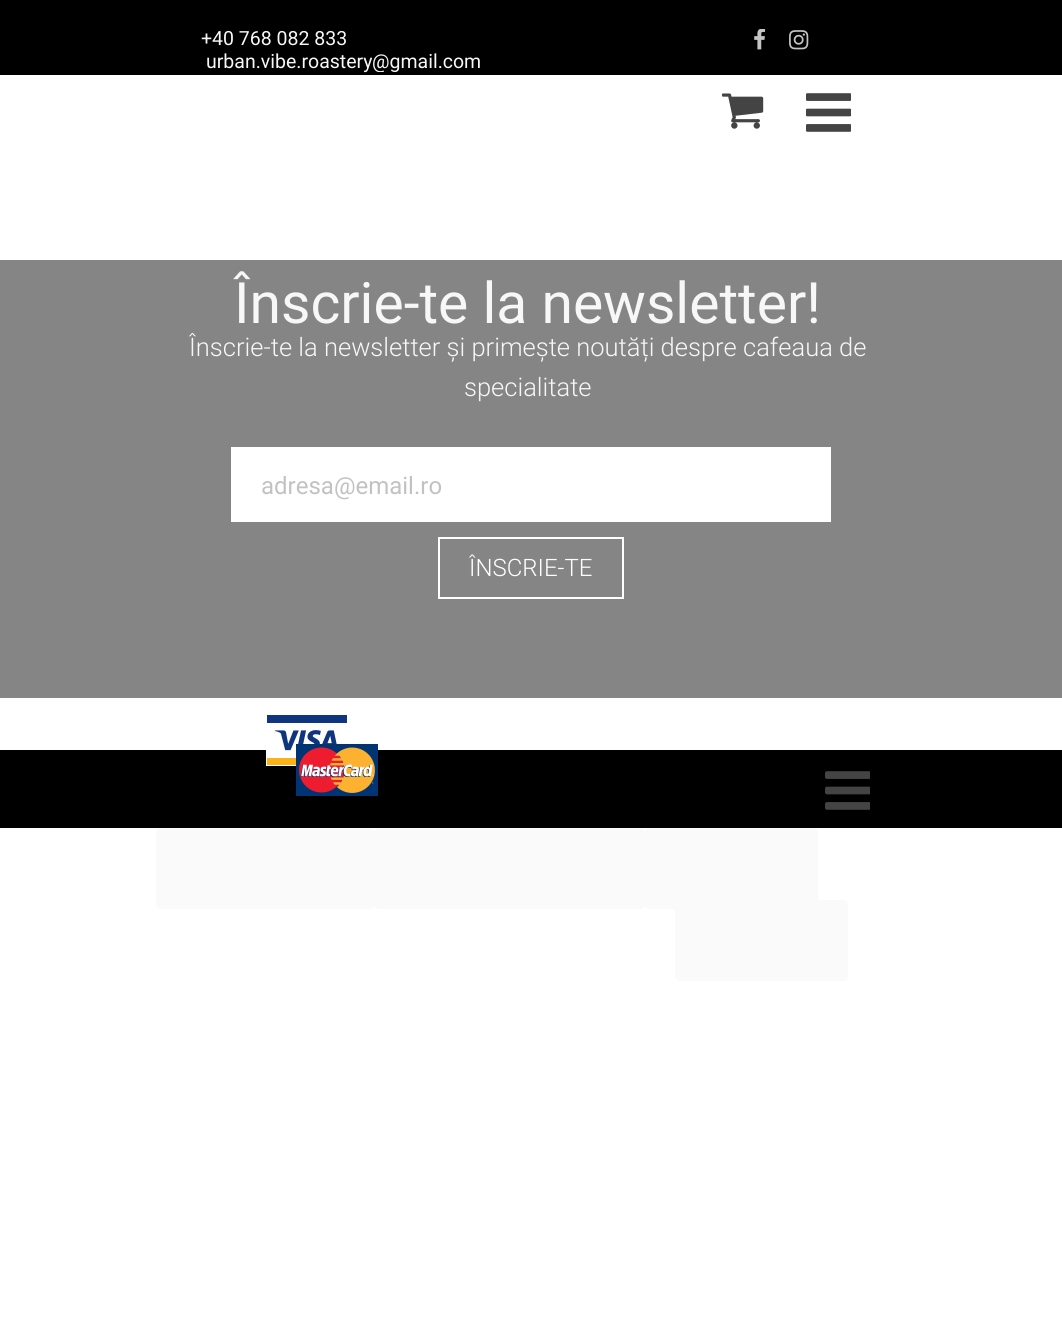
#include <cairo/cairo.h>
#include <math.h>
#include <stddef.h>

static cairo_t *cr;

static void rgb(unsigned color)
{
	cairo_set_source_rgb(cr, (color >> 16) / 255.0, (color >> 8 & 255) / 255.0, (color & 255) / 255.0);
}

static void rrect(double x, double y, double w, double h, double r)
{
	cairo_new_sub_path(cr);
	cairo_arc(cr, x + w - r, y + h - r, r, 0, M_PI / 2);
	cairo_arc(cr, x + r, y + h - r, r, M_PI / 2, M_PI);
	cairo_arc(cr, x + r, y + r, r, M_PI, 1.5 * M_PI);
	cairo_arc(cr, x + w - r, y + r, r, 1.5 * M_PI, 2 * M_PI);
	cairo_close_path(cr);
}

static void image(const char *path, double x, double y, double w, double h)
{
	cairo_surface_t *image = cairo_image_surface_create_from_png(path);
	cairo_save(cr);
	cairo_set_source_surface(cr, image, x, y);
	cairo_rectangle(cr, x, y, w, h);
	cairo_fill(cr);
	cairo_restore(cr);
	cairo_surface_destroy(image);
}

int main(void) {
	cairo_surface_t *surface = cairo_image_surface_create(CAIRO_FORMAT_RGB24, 1062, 1343);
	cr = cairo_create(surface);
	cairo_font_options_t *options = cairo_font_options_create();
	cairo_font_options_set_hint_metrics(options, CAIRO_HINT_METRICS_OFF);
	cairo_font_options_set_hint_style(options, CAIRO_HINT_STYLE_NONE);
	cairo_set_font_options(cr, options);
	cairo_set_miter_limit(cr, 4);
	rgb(0xffffff);
	cairo_paint(cr);
	rgb(0x000000);
	cairo_rectangle(cr, 0, 0, 1062, 75);
	cairo_fill(cr);
	image("img/1.png", 754, 29, 12, 21);
	image("img/2.png", 789, 30, 20, 20);
	image("img/3.png", 722, 93, 42, 36);
	image("img/4.png", 806, 93, 45, 39);
	rgb(0x858585);
	cairo_rectangle(cr, 0, 260, 1062, 438);
	cairo_fill(cr);
	rgb(0xffffff);
	cairo_rectangle(cr, 231, 447, 600, 75);
	cairo_fill(cr);
	cairo_rectangle(cr, 439, 538, 184, 60);
	cairo_stroke(cr);
	rgb(0x000000);
	cairo_rectangle(cr, 0, 750, 1062, 78);
	cairo_fill(cr);
	image("img/5.png", 266, 715, 82, 51);
	image("img/6.png", 296, 744, 82, 52);
	image("img/7.png", 825, 771, 45, 39);
	rgb(0xfafafa);
	rrect(156, 828, 218, 81, 5);
	cairo_fill(cr);
	rrect(374, 828, 271, 81, 5);
	cairo_fill(cr);
	rrect(645, 828, 173, 81, 5);
	cairo_fill(cr);
	rrect(675, 900, 173, 81, 5);
	cairo_fill(cr);
	cairo_select_font_face(cr, "Roboto", CAIRO_FONT_SLANT_NORMAL, CAIRO_FONT_WEIGHT_NORMAL);
	cairo_set_font_size(cr, 19.5);
	rgb(0xf7f7f7);
	cairo_move_to(cr, 201, 45);
	cairo_show_text(cr, "+40 768 082 833");
	cairo_move_to(cr, 206, 68);
	cairo_show_text(cr, "urban.vibe.roastery");
	cairo_save(cr);
	cairo_rectangle(cr, 201, 8, 422, 64);
	cairo_clip(cr);
	cairo_move_to(cr, 372, 68);
	cairo_show_text(cr, "@gmail.com");
	cairo_restore(cr);
	cairo_set_font_size(cr, 57);
	cairo_move_to(cr, 234, 323);
	cairo_show_text(cr, "Înscrie-te la newsletter!");
	cairo_select_font_face(cr, "Roboto Light", CAIRO_FONT_SLANT_NORMAL, CAIRO_FONT_WEIGHT_NORMAL);
	cairo_set_font_size(cr, 25.5);
	cairo_move_to(cr, 189, 356);
	cairo_show_text(cr, "Înscrie-te la newsletter și primește noutăți despre cafeaua de");
	cairo_move_to(cr, 464, 396);
	cairo_show_text(cr, "specialitate");
	cairo_select_font_face(cr, "Roboto", CAIRO_FONT_SLANT_NORMAL, CAIRO_FONT_WEIGHT_NORMAL);
	cairo_set_font_size(cr, 24);
	rgb(0xc2c2c2);
	cairo_move_to(cr, 261, 494);
	cairo_show_text(cr, "adresa@email.ro");
	cairo_select_font_face(cr, "Roboto Light", CAIRO_FONT_SLANT_NORMAL, CAIRO_FONT_WEIGHT_NORMAL);
	rgb(0xffffff);
	cairo_move_to(cr, 469, 576);
	cairo_show_text(cr, "ÎNSCRIE-TE");
	cairo_surface_write_to_png(surface, "page.png");
	cairo_font_options_destroy(options);
	cairo_destroy(cr);
	cairo_surface_destroy(surface);
	return 0;
}
